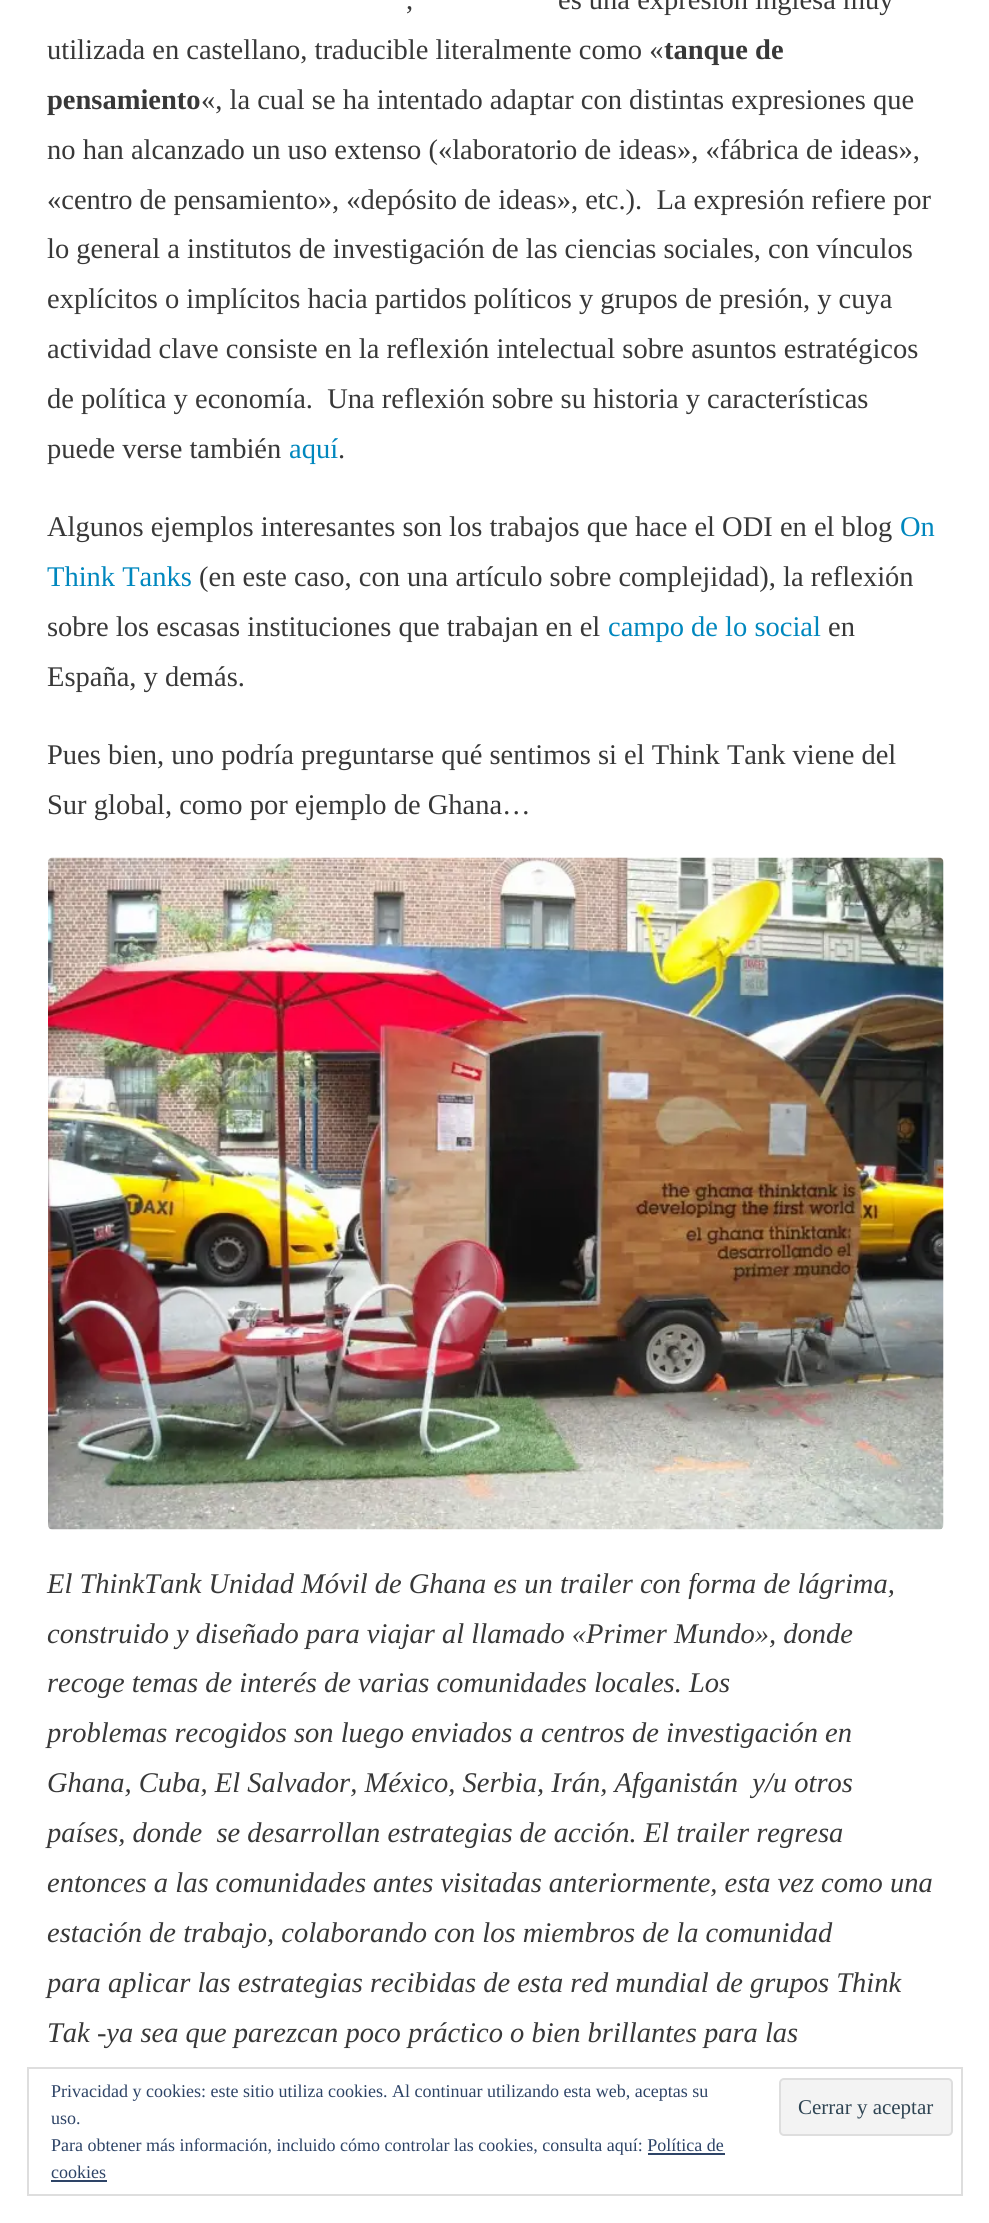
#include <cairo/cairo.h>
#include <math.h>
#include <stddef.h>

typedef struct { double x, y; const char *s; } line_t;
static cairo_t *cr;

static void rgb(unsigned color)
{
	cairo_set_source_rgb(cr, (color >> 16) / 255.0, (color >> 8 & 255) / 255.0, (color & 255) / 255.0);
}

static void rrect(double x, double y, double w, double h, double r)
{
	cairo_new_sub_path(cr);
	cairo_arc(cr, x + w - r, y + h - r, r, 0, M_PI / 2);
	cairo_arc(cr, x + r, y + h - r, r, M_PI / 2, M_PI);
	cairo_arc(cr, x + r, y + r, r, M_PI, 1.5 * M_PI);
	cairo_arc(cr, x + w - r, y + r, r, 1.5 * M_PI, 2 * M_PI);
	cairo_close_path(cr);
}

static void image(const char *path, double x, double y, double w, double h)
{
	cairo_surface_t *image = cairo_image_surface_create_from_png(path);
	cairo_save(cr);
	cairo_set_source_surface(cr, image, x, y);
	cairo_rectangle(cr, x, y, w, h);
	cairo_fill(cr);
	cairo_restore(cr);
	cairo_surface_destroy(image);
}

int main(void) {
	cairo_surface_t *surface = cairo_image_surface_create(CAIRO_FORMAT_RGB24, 989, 2223);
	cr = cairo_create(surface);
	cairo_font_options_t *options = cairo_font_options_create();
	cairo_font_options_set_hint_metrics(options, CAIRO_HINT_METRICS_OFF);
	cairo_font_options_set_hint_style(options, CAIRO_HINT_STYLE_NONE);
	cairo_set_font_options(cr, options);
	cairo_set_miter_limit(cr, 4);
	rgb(0xffffff);
	cairo_paint(cr);
	image("img/1.png", 48, 857, 896, 673);
	cairo_rectangle(cr, 28, 2068, 934, 127);
	rgb(0xdedede);
	cairo_stroke(cr);
	rgb(0xf3f3f3);
	rrect(780, 2079, 172, 56, 4);
	cairo_fill_preserve(cr);
	rgb(0xdedede);
	cairo_stroke(cr);
	rgb(0x2e4467);
	cairo_rectangle(cr, 648, 2153, 77, 2);
	cairo_fill(cr);
	cairo_rectangle(cr, 51, 2180, 56, 2);
	cairo_fill(cr);
	cairo_select_font_face(cr, "Liberation Serif", CAIRO_FONT_SLANT_NORMAL, CAIRO_FONT_WEIGHT_NORMAL);
	cairo_set_font_size(cr, 28.5);
	rgb(0x383838);
	{
		static const line_t items[] = {
			{406, 9, ","},
			{558, 9, "es una expresión inglesa muy"},
			{47, 59, "utilizada en castellano, traducible literalmente como «"},
		};
		for (size_t i = 0; i < sizeof items / sizeof *items; i++) {
			cairo_move_to(cr, items[i].x, items[i].y);
			cairo_show_text(cr, items[i].s);
		}
	}
	cairo_select_font_face(cr, "Liberation Serif", CAIRO_FONT_SLANT_NORMAL, CAIRO_FONT_WEIGHT_BOLD);
	cairo_move_to(cr, 664, 59);
	cairo_show_text(cr, "tanque de");
	cairo_move_to(cr, 47, 109);
	cairo_show_text(cr, "pensamiento");
	cairo_select_font_face(cr, "Liberation Serif", CAIRO_FONT_SLANT_NORMAL, CAIRO_FONT_WEIGHT_NORMAL);
	{
		static const line_t items[] = {
			{201, 109, "«, la cual se ha intentado adaptar con distintas expresiones que"},
			{47, 159, "no han alcanzado un uso extenso («laboratorio de ideas», «fábrica de ideas»,"},
			{47, 209, "«centro de pensamiento», «depósito de ideas», etc.).  La expresión refiere por"},
			{47, 258, "lo general a institutos de investigación de las ciencias sociales, con vínculos"},
			{47, 308, "explícitos o implícitos hacia partidos políticos y grupos de presión, y cuya"},
			{47, 358, "actividad clave consiste en la reflexión intelectual sobre asuntos estratégicos"},
			{47, 408, "de política y economía.  Una reflexión sobre su historia y características"},
			{47, 458, "puede verse también"},
		};
		for (size_t i = 0; i < sizeof items / sizeof *items; i++) {
			cairo_move_to(cr, items[i].x, items[i].y);
			cairo_show_text(cr, items[i].s);
		}
	}
	rgb(0x0087be);
	cairo_move_to(cr, 289, 458);
	cairo_show_text(cr, "aquí");
	rgb(0x383838);
	cairo_move_to(cr, 338, 458);
	cairo_show_text(cr, ".");
	cairo_move_to(cr, 47, 536);
	cairo_show_text(cr, "Algunos ejemplos interesantes son los trabajos que hace el ODI en el blog");
	rgb(0x0087be);
	cairo_move_to(cr, 900, 536);
	cairo_show_text(cr, "On");
	cairo_move_to(cr, 47, 586);
	cairo_show_text(cr, "Think Tanks");
	rgb(0x383838);
	cairo_move_to(cr, 199, 586);
	cairo_show_text(cr, "(en este caso, con una artículo sobre complejidad), la reflexión");
	cairo_move_to(cr, 47, 636);
	cairo_show_text(cr, "sobre los escasas instituciones que trabajan en el");
	rgb(0x0087be);
	cairo_move_to(cr, 608, 636);
	cairo_show_text(cr, "campo de lo social");
	rgb(0x383838);
	{
		static const line_t items[] = {
			{828, 636, "en"},
			{47, 686, "España, y demás."},
			{47, 764, "Pues bien, uno podría preguntarse qué sentimos si el Think Tank viene del"},
			{47, 814, "Sur global, como por ejemplo de Ghana…"},
		};
		for (size_t i = 0; i < sizeof items / sizeof *items; i++) {
			cairo_move_to(cr, items[i].x, items[i].y);
			cairo_show_text(cr, items[i].s);
		}
	}
	cairo_select_font_face(cr, "Liberation Serif", CAIRO_FONT_SLANT_ITALIC, CAIRO_FONT_WEIGHT_NORMAL);
	{
		static const line_t items[] = {
			{47, 1593, "El ThinkTank Unidad Móvil de Ghana es un trailer con forma de lágrima,"},
			{47, 1643, "construido y diseñado para viajar al llamado «Primer Mundo», donde"},
			{47, 1692, "recoge temas de interés de varias comunidades locales. Los"},
			{47, 1742, "problemas recogidos son luego enviados a centros de investigación en"},
			{47, 1792, "Ghana, Cuba, El Salvador, México, Serbia, Irán, Afganistán  y/u otros"},
			{47, 1842, "países, donde  se desarrollan estrategias de acción. El trailer regresa"},
			{47, 1892, "entonces a las comunidades antes visitadas anteriormente, esta vez como una"},
			{47, 1942, "estación de trabajo, colaborando con los miembros de la comunidad"},
			{47, 1992, "para aplicar las estrategias recibidas de esta red mundial de grupos Think"},
			{47, 2042, "Tak -ya sea que parezcan poco práctico o bien brillantes para las"},
		};
		for (size_t i = 0; i < sizeof items / sizeof *items; i++) {
			cairo_move_to(cr, items[i].x, items[i].y);
			cairo_show_text(cr, items[i].s);
		}
	}
	cairo_select_font_face(cr, "Liberation Serif", CAIRO_FONT_SLANT_NORMAL, CAIRO_FONT_WEIGHT_NORMAL);
	cairo_set_font_size(cr, 18);
	rgb(0x2e4467);
	cairo_move_to(cr, 51, 2097);
	cairo_show_text(cr, "Privacidad y cookies: este sitio utiliza cookies. Al continuar utilizando esta web, aceptas su");
	cairo_set_font_size(cr, 21);
	rgb(0x2e4453);
	cairo_move_to(cr, 798, 2114);
	cairo_show_text(cr, "Cerrar y aceptar");
	cairo_set_font_size(cr, 18);
	rgb(0x2e4467);
	{
		static const line_t items[] = {
			{51, 2124, "uso."},
			{51, 2151, "Para obtener más información, incluido cómo controlar las cookies, consulta aquí: Política de"},
			{51, 2178, "cookies"},
		};
		for (size_t i = 0; i < sizeof items / sizeof *items; i++) {
			cairo_move_to(cr, items[i].x, items[i].y);
			cairo_show_text(cr, items[i].s);
		}
	}
	cairo_surface_write_to_png(surface, "page.png");
	cairo_font_options_destroy(options);
	cairo_destroy(cr);
	cairo_surface_destroy(surface);
	return 0;
}
